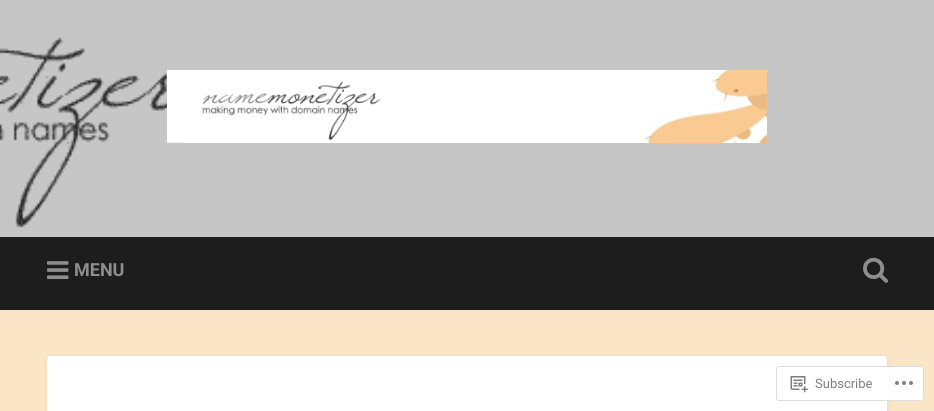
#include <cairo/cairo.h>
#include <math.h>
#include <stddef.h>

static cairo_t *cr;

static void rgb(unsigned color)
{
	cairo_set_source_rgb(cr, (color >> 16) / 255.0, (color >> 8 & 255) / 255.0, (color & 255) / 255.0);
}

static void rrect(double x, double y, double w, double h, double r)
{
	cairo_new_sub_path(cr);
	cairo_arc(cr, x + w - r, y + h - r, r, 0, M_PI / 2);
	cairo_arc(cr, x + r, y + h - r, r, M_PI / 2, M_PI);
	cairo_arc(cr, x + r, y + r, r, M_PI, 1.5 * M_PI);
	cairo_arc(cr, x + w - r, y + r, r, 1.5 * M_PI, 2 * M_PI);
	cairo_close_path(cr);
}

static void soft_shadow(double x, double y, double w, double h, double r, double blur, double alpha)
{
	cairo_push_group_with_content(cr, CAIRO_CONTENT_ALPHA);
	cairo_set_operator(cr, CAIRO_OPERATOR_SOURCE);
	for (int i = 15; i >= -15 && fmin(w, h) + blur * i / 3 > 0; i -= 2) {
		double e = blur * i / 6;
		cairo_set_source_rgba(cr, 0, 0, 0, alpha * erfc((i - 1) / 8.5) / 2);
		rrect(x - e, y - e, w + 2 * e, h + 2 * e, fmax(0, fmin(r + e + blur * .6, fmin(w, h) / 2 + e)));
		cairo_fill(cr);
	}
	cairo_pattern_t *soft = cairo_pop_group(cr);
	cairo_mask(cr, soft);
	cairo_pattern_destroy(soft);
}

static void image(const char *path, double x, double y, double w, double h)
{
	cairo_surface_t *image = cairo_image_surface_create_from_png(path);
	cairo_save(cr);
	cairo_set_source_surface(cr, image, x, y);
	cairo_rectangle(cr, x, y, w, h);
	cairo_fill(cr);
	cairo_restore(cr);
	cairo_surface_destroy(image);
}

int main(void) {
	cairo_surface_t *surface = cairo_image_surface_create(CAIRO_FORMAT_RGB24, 934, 411);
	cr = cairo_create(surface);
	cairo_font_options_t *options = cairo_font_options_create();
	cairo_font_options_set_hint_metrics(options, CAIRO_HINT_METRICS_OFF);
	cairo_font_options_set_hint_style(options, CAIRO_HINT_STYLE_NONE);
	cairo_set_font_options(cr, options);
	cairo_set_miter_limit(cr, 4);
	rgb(0xfae5c6);
	cairo_paint(cr);
	image("img/1.png", 0, 0, 934, 237);
	image("img/2.png", 167, 70, 600, 73);
	rgb(0x1d1d1d);
	cairo_rectangle(cr, 0, 237, 934, 73);
	cairo_fill(cr);
	image("img/3.png", 47, 261, 22, 18);
	image("img/4.png", 863, 257, 25, 26);
	rgb(0x000000);
	soft_shadow(47, 357, 840, 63, 3, 2, 0.1);
	rgb(0xffffff);
	rrect(47, 356, 840, 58, 3);
	cairo_fill(cr);
	cairo_set_source_rgba(cr, 1, 1, 1, 0.98);
	rrect(776, 366, 148, 35, 3);
	cairo_fill(cr);
	rrect(776.5, 366.5, 147, 34, 2.5);
	cairo_set_source_rgba(cr, 0.863, 0.863, 0.871, 0.98);
	cairo_set_line_width(cr, 1);
	cairo_stroke(cr);
	image("img/5.png", 790, 376, 18, 17);
	image("img/6.png", 895, 381, 18, 4);
	cairo_select_font_face(cr, "Roboto", CAIRO_FONT_SLANT_NORMAL, CAIRO_FONT_WEIGHT_BOLD);
	cairo_set_font_size(cr, 18);
	rgb(0x8e8e8e);
	cairo_move_to(cr, 74, 276);
	cairo_show_text(cr, "MENU");
	cairo_select_font_face(cr, "Roboto", CAIRO_FONT_SLANT_NORMAL, CAIRO_FONT_WEIGHT_NORMAL);
	cairo_set_font_size(cr, 13);
	rgb(0x7b7f85);
	cairo_move_to(cr, 815, 388);
	cairo_show_text(cr, "Subscribe");
	cairo_surface_write_to_png(surface, "page.png");
	cairo_font_options_destroy(options);
	cairo_destroy(cr);
	cairo_surface_destroy(surface);
	return 0;
}
